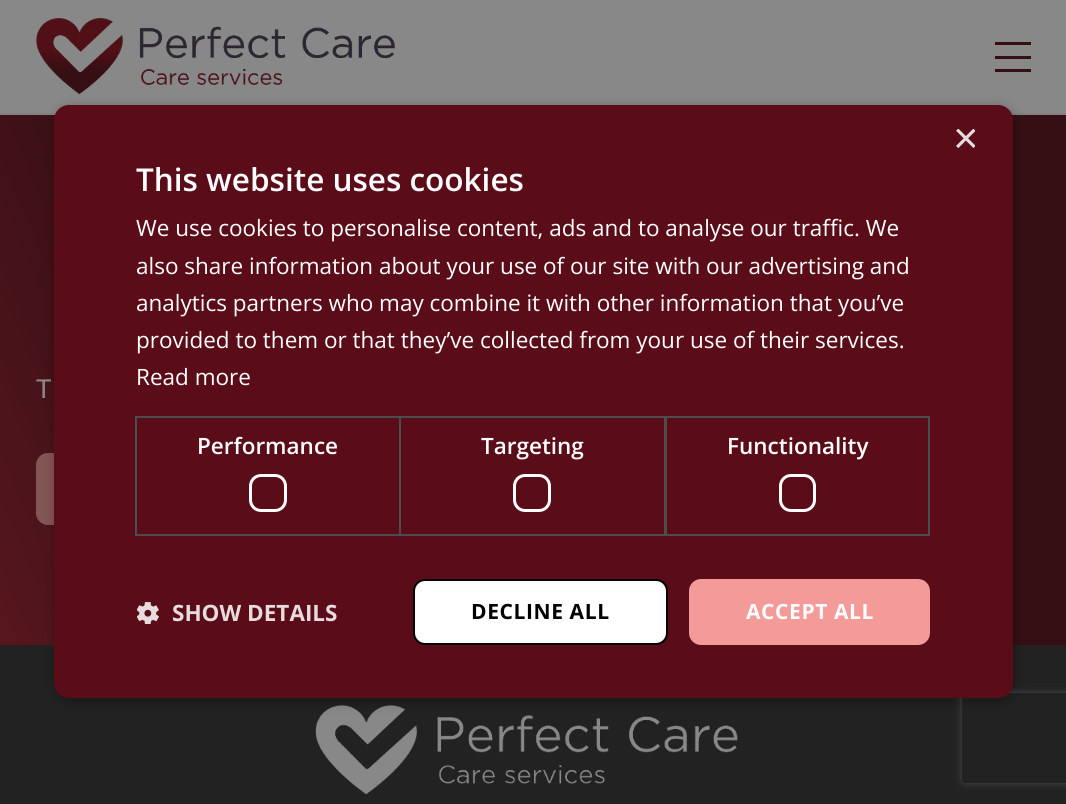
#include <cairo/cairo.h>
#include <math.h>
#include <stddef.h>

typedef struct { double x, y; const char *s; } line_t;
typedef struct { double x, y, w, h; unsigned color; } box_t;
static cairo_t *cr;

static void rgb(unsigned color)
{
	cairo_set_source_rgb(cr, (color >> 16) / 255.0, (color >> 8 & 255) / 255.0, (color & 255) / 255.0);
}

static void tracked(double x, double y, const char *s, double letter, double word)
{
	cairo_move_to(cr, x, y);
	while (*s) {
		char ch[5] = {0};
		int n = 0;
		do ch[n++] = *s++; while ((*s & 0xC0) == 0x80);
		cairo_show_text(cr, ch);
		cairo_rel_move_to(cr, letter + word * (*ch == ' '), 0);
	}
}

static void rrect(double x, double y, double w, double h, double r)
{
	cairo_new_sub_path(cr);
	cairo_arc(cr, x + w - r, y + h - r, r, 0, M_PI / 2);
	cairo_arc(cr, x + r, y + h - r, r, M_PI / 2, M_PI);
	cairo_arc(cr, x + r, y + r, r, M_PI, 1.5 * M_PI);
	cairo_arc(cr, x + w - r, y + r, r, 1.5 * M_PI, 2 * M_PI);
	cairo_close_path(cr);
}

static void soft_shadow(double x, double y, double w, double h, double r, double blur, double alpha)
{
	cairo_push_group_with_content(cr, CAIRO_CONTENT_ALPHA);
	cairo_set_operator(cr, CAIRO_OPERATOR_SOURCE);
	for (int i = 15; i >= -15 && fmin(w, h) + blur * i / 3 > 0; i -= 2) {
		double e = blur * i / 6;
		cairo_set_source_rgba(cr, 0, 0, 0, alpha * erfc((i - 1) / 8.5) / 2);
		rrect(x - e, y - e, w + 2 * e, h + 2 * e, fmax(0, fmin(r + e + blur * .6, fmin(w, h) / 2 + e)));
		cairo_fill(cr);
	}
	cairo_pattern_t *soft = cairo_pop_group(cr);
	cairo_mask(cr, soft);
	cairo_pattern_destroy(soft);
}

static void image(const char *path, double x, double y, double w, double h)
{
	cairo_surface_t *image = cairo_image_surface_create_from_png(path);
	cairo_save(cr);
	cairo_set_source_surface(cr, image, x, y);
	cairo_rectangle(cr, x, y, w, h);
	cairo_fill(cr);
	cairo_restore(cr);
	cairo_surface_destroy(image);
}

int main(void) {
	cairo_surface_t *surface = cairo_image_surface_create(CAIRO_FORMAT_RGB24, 1066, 804);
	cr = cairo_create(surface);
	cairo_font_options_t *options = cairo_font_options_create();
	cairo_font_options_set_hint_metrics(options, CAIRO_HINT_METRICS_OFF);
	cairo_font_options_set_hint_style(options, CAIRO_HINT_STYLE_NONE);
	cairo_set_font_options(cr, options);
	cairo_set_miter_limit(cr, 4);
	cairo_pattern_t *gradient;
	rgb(0x888888);
	cairo_paint(cr);
	rgb(0x828282);
	cairo_rectangle(cr, 0, 113, 1066, 2);
	cairo_fill(cr);
	image("img/1.png", 36, 18, 359, 77);
	{
		static const box_t items[] = {
			{995, 42, 36, 3, 0x360f14},
			{995, 56, 36, 3, 0x360f14},
			{995, 69, 36, 3, 0x360f14},
		};
		for (size_t i = 0; i < sizeof items / sizeof *items; i++) {
			rgb(items[i].color);
			cairo_rectangle(cr, items[i].x, items[i].y, items[i].w, items[i].h);
			cairo_fill(cr);
		}
	}
	gradient = cairo_pattern_create_linear(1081, 147, -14, 612);
	cairo_pattern_add_color_stop_rgba(gradient, 0.75, 0.212, 0.059, 0.078, 1);
	cairo_pattern_add_color_stop_rgba(gradient, 1, 0.341, 0.086, 0.118, 1);
	cairo_set_source(cr, gradient);
	cairo_pattern_destroy(gradient);
	cairo_rectangle(cr, 0, 115, 1066, 530);
	cairo_fill(cr);
	rgb(0x835655);
	rrect(37.5, 454.5, 204, 69, 10.5);
	cairo_fill_preserve(cr);
	cairo_set_line_width(cr, 3);
	cairo_stroke(cr);
	rgb(0x222222);
	cairo_rectangle(cr, 0, 645, 1066, 159);
	cairo_fill(cr);
	image("img/2.png", 315, 705, 423, 90);
	rgb(0x000000);
	soft_shadow(56, 108, 958, 593, 15, 6, 0.35);
	cairo_save(cr);
	cairo_set_fill_rule(cr, CAIRO_FILL_RULE_EVEN_ODD);
	cairo_new_path(cr);
	cairo_move_to(cr, 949, 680);
	cairo_line_to(cr, 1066, 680);
	cairo_line_to(cr, 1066, 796);
	cairo_line_to(cr, 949, 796);
	cairo_close_path(cr);
	cairo_move_to(cr, 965, 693);
	cairo_line_to(cr, 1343, 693);
	cairo_curve_to(cr, 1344.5, 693, 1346, 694.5, 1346, 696);
	cairo_line_to(cr, 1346, 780);
	cairo_curve_to(cr, 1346, 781.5, 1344.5, 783, 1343, 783);
	cairo_line_to(cr, 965, 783);
	cairo_curve_to(cr, 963.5, 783, 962, 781.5, 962, 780);
	cairo_line_to(cr, 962, 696);
	cairo_curve_to(cr, 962, 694.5, 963.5, 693, 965, 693);
	cairo_close_path(cr);
	cairo_clip(cr);
	rgb(0x494949);
	soft_shadow(962, 693, 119, 90, 3, 4, 1);
	cairo_restore(cr);
	rgb(0x5a0c19);
	rrect(54, 105, 959, 593, 15);
	cairo_fill(cr);
	cairo_rectangle(cr, 136, 417, 264, 118);
	rgb(0x4d4d4d);
	cairo_set_line_width(cr, 2);
	cairo_stroke(cr);
	rrect(250.5, 475.5, 35, 35, 10.5);
	rgb(0xffffff);
	cairo_set_line_width(cr, 3);
	cairo_stroke(cr);
	cairo_rectangle(cr, 400, 417, 265, 118);
	rgb(0x4d4d4d);
	cairo_set_line_width(cr, 2);
	cairo_stroke(cr);
	rrect(514.5, 475.5, 35, 35, 10.5);
	rgb(0xffffff);
	cairo_set_line_width(cr, 3);
	cairo_stroke(cr);
	cairo_rectangle(cr, 666, 417, 263, 118);
	rgb(0x4d4d4d);
	cairo_set_line_width(cr, 2);
	cairo_stroke(cr);
	rrect(780.5, 475.5, 34, 35, 10.5);
	rgb(0xffffff);
	cairo_set_line_width(cr, 3);
	cairo_stroke(cr);
	image("img/3.png", 137, 602, 22, 22);
	rrect(414, 580, 253, 64, 11);
	cairo_fill_preserve(cr);
	rgb(0x000000);
	cairo_set_line_width(cr, 2);
	cairo_stroke(cr);
	rgb(0xf49a99);
	rrect(689, 579, 241, 66, 12);
	cairo_fill(cr);
	cairo_select_font_face(cr, "Lato", CAIRO_FONT_SLANT_NORMAL, CAIRO_FONT_WEIGHT_NORMAL);
	cairo_set_font_size(cr, 26);
	rgb(0x888888);
	cairo_move_to(cr, 36, 398);
	cairo_show_text(cr, "T");
	cairo_save(cr);
	cairo_rectangle(cr, 953, 129, 22, 23);
	cairo_clip(cr);
	cairo_select_font_face(cr, "Liberation Sans", CAIRO_FONT_SLANT_NORMAL, CAIRO_FONT_WEIGHT_NORMAL);
	cairo_set_font_size(cr, 44);
	rgb(0xe6dbdd);
	cairo_move_to(cr, 953, 153);
	cairo_show_text(cr, "×");
	cairo_restore(cr);
	cairo_select_font_face(cr, "Open Sans SemiBold", CAIRO_FONT_SLANT_NORMAL, CAIRO_FONT_WEIGHT_NORMAL);
	cairo_set_font_size(cr, 31.5);
	rgb(0xffffff);
	cairo_move_to(cr, 136, 191);
	cairo_show_text(cr, "This website uses cookies");
	cairo_select_font_face(cr, "Open Sans", CAIRO_FONT_SLANT_NORMAL, CAIRO_FONT_WEIGHT_NORMAL);
	cairo_set_font_size(cr, 22.5);
	{
		static const line_t items[] = {
			{136, 236, "We use cookies to personalise content, ads and to analyse our traffic. We"},
			{136, 274, "also share information about your use of our site with our advertising and"},
			{136, 311, "analytics partners who may combine it with other information that you’ve"},
			{136, 348, "provided to them or that they’ve collected from your use of their services."},
			{136, 385, "Read more"},
		};
		for (size_t i = 0; i < sizeof items / sizeof *items; i++) {
			cairo_move_to(cr, items[i].x, items[i].y);
			cairo_show_text(cr, items[i].s);
		}
	}
	cairo_select_font_face(cr, "Open Sans SemiBold", CAIRO_FONT_SLANT_NORMAL, CAIRO_FONT_WEIGHT_NORMAL);
	{
		static const line_t items[] = {
			{197, 454, "Performance"},
			{481, 454, "Targeting"},
			{727, 454, "Functionality"},
		};
		for (size_t i = 0; i < sizeof items / sizeof *items; i++) {
			cairo_move_to(cr, items[i].x, items[i].y);
			cairo_show_text(cr, items[i].s);
		}
	}
	cairo_select_font_face(cr, "Open Sans", CAIRO_FONT_SLANT_NORMAL, CAIRO_FONT_WEIGHT_BOLD);
	rgb(0xe6dbdd);
	cairo_move_to(cr, 172, 621);
	cairo_show_text(cr, "SHOW DETAILS");
	cairo_set_font_size(cr, 21);
	rgb(0x000000);
	tracked(471, 619, "DECLINE ALL", 0.6, 0);
	rgb(0xffffff);
	tracked(746, 619, "ACCEPT ALL", 0.6, 0);
	cairo_surface_write_to_png(surface, "page.png");
	cairo_font_options_destroy(options);
	cairo_destroy(cr);
	cairo_surface_destroy(surface);
	return 0;
}
